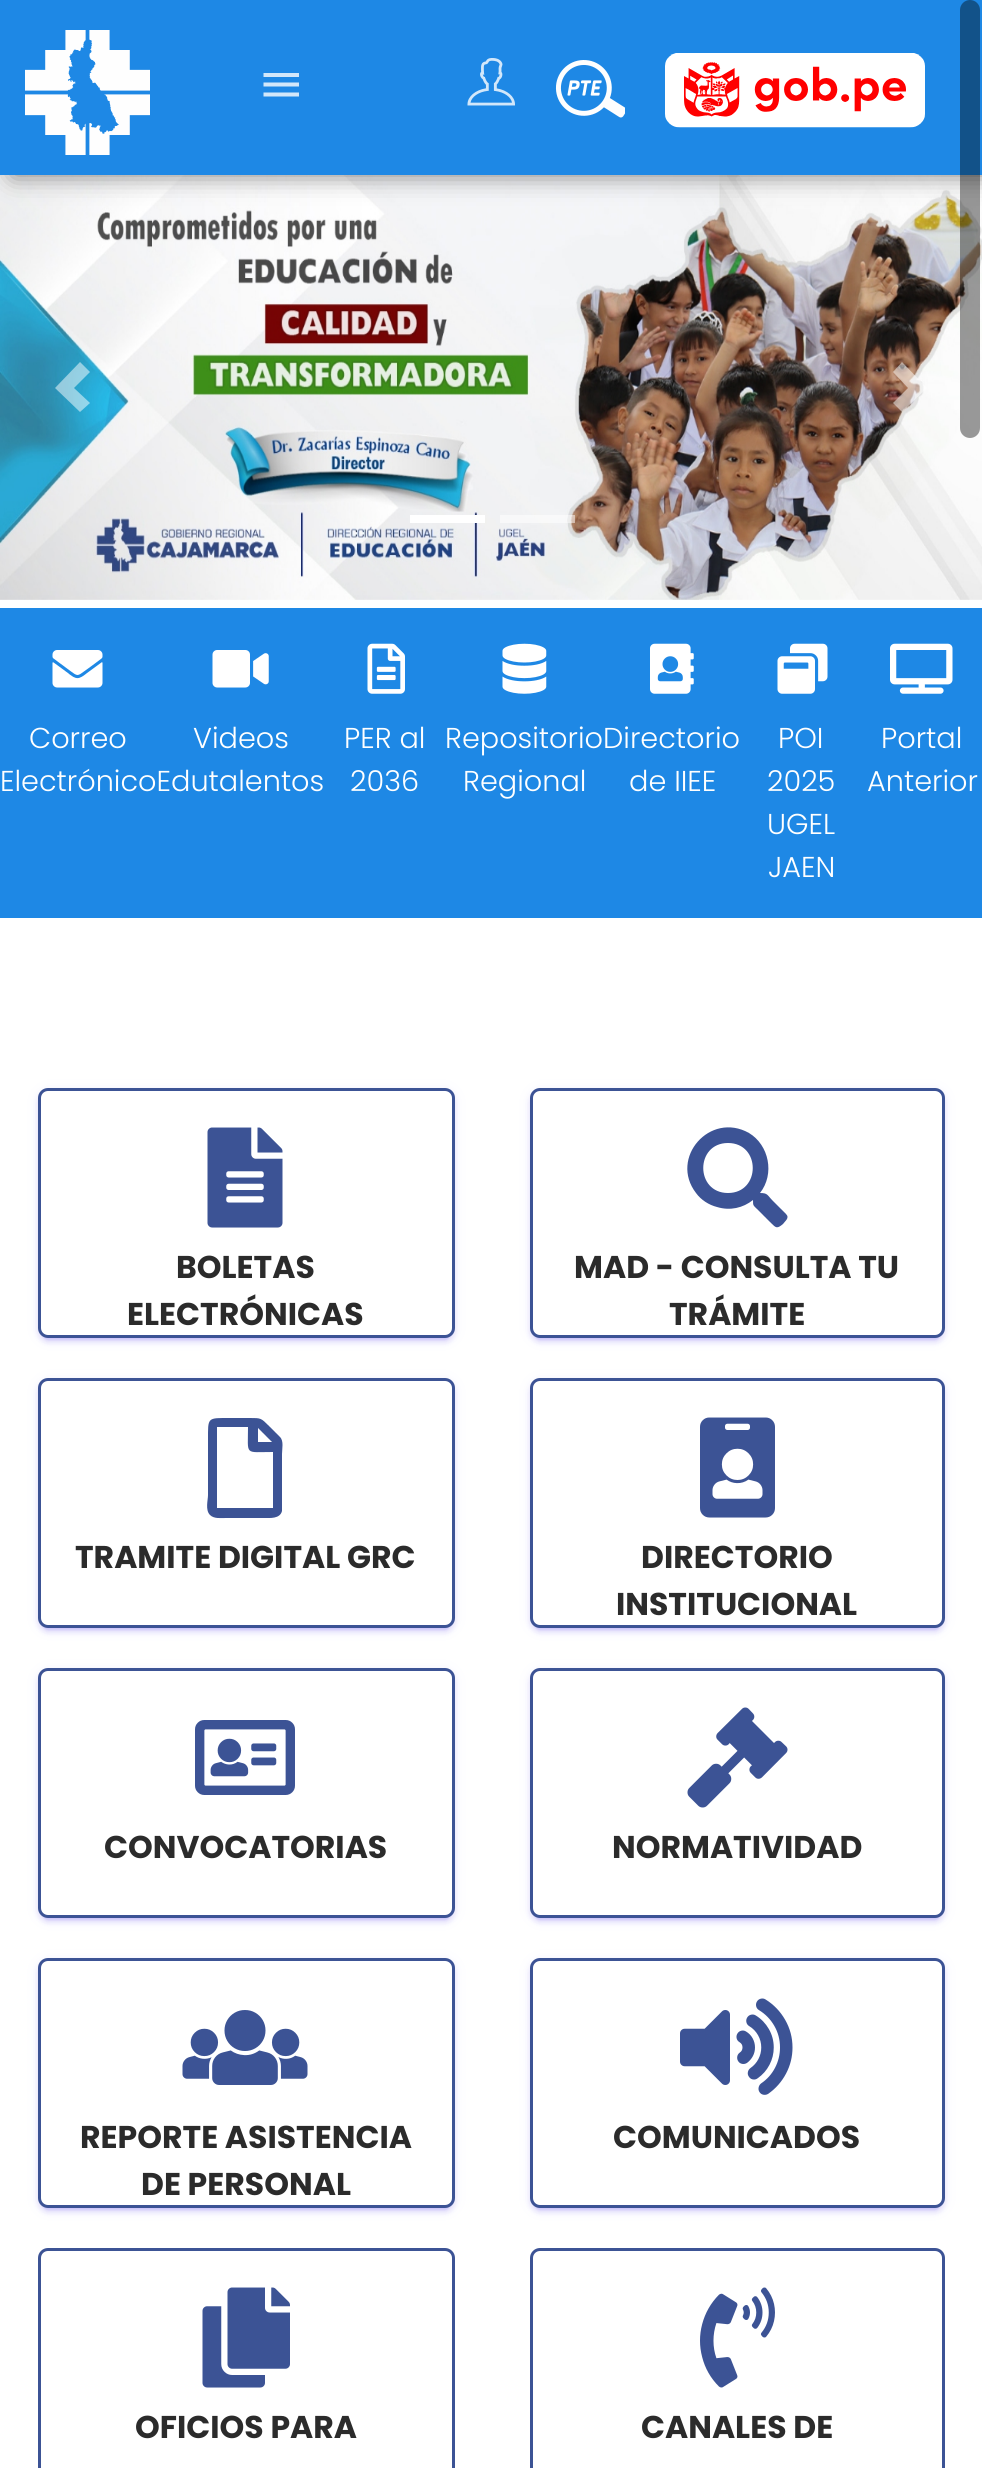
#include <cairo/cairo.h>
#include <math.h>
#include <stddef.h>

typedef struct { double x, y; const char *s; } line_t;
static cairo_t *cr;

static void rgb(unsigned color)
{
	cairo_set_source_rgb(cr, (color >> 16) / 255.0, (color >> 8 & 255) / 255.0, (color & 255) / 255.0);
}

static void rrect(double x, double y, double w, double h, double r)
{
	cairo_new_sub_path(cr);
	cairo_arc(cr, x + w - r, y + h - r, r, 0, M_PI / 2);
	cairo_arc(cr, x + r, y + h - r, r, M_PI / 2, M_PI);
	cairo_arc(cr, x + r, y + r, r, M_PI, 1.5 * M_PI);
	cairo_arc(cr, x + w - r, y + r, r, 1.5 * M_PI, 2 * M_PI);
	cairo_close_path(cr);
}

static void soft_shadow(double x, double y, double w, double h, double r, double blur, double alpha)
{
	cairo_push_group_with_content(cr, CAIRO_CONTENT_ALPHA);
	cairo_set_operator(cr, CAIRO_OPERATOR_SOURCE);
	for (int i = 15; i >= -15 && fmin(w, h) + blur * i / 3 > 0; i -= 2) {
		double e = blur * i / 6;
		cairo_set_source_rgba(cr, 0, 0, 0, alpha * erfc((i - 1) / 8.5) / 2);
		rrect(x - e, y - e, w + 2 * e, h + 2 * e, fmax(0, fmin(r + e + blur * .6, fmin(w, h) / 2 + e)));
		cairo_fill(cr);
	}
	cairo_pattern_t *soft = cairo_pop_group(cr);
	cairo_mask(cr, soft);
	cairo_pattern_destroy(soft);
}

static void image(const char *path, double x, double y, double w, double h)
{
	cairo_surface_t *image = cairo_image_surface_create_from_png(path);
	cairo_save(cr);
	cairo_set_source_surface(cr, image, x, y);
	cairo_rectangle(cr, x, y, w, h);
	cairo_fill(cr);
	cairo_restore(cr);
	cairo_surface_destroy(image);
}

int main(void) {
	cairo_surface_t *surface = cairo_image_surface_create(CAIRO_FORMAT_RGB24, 982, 2468);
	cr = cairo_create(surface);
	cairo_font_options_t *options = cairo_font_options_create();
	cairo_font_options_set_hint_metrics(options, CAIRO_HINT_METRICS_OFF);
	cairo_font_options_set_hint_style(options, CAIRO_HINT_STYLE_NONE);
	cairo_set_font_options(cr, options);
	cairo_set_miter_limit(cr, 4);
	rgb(0xffffff);
	cairo_paint(cr);
	image("img/5.png", 0, 175, 982, 425);
	rgb(0x000000);
	soft_shadow(13, 0, 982, 175, 0, 12.5, 0.5);
	rgb(0x1e88e5);
	cairo_rectangle(cr, 0, 0, 982, 175);
	cairo_fill(cr);
	cairo_set_source_rgba(cr, 0, 0, 0, 0.4);
	rrect(960, 0, 20, 438, 10);
	cairo_fill(cr);
	image("img/1.png", 25, 30, 125, 125);
	rgb(0xd2e7fa);
	cairo_new_path(cr);
	cairo_move_to(cr, 263.5, 73);
	cairo_line_to(cr, 299, 73);
	cairo_line_to(cr, 299, 77);
	cairo_line_to(cr, 263.5, 77);
	cairo_close_path(cr);
	cairo_move_to(cr, 263.5, 82.5);
	cairo_line_to(cr, 299, 82.5);
	cairo_line_to(cr, 299, 86.5);
	cairo_line_to(cr, 263.5, 86.5);
	cairo_close_path(cr);
	cairo_move_to(cr, 263.5, 92.5);
	cairo_line_to(cr, 299, 92.5);
	cairo_line_to(cr, 299, 96.5);
	cairo_line_to(cr, 263.5, 96.5);
	cairo_close_path(cr);
	cairo_fill(cr);
	image("img/2.png", 467, 58, 48, 48);
	image("img/3.png", 555, 60, 70, 58);
	image("img/4.png", 665, 53, 260, 75);
	cairo_set_source_rgba(cr, 1, 1, 1, 0.5);
	cairo_new_path(cr);
	cairo_move_to(cr, 80, 362);
	cairo_line_to(cr, 55, 388);
	cairo_line_to(cr, 80, 412);
	cairo_line_to(cr, 90, 403);
	cairo_line_to(cr, 74, 388);
	cairo_line_to(cr, 90, 372);
	cairo_close_path(cr);
	cairo_fill(cr);
	cairo_new_path(cr);
	cairo_move_to(cr, 902, 362);
	cairo_line_to(cr, 893, 372);
	cairo_line_to(cr, 908, 388);
	cairo_line_to(cr, 893, 403);
	cairo_line_to(cr, 902, 412);
	cairo_line_to(cr, 927, 388);
	cairo_close_path(cr);
	cairo_fill(cr);
	rgb(0xffffff);
	cairo_rectangle(cr, 410, 515, 75, 8);
	cairo_fill(cr);
	cairo_set_source_rgba(cr, 1, 1, 1, 0.5);
	cairo_rectangle(cr, 500, 515, 75, 8);
	cairo_fill(cr);
	rgb(0x1e88e5);
	cairo_rectangle(cr, 0, 608, 982, 310);
	cairo_fill(cr);
	image("img/6.png", 212, 650, 57, 38);
	image("img/7.png", 367, 643, 38, 51);
	image("img/8.png", 502, 643, 45, 51);
	image("img/9.png", 890, 643, 63, 51);
	image("img/10.png", 52, 650, 51, 38);
	image("img/11.png", 650, 643, 44, 51);
	image("img/12.png", 777, 643, 51, 51);
	rgb(0x7460ee);
	soft_shadow(38, 1090, 417, 250, 10, 6, 0.12);
	soft_shadow(43, 1100, 407, 240, 5, 1, 0.2);
	soft_shadow(38, 1093, 417, 250, 10, 2.5, 0.14);
	rgb(0xffffff);
	rrect(39.5, 1089.5, 414, 247, 8.5);
	cairo_fill_preserve(cr);
	rgb(0x3c5395);
	cairo_set_line_width(cr, 3);
	cairo_stroke(cr);
	image("img/13.png", 207, 1127, 76, 101);
	rgb(0x7460ee);
	soft_shadow(530, 1090, 415, 250, 10, 6, 0.12);
	soft_shadow(535, 1100, 405, 240, 5, 1, 0.2);
	soft_shadow(530, 1093, 415, 250, 10, 2.5, 0.14);
	rgb(0xffffff);
	rrect(531.5, 1089.5, 412, 247, 8.5);
	cairo_fill_preserve(cr);
	rgb(0x3c5395);
	cairo_stroke(cr);
	cairo_new_path(cr);
	cairo_move_to(cr, 786, 1214);
	cairo_line_to(cr, 773, 1201);
	cairo_curve_to(cr, 767, 1195, 768, 1193, 760, 1193);
	cairo_curve_to(cr, 775, 1174, 769, 1145, 749, 1133);
	cairo_curve_to(cr, 710, 1111, 669, 1158, 696, 1193);
	cairo_curve_to(cr, 701, 1200, 709, 1205, 717, 1207);
	cairo_curve_to(cr, 730, 1211, 743, 1208, 753, 1200);
	cairo_curve_to(cr, 753, 1206, 753, 1205, 758, 1210);
	cairo_line_to(cr, 771, 1223);
	cairo_curve_to(cr, 776, 1228, 777, 1229, 783, 1224);
	cairo_curve_to(cr, 785, 1221, 790, 1218, 786, 1214);
	cairo_close_path(cr);
	cairo_move_to(cr, 728, 1193);
	cairo_curve_to(cr, 695, 1193, 695, 1143, 728, 1143);
	cairo_curve_to(cr, 761, 1143, 761, 1193, 728, 1193);
	cairo_close_path(cr);
	cairo_fill(cr);
	rgb(0x7460ee);
	soft_shadow(38, 1380, 417, 250, 10, 6, 0.12);
	soft_shadow(43, 1390, 407, 240, 5, 1, 0.2);
	soft_shadow(38, 1383, 417, 250, 10, 2.5, 0.14);
	rgb(0xffffff);
	rrect(39.5, 1379.5, 414, 247, 8.5);
	cairo_fill_preserve(cr);
	rgb(0x3c5395);
	cairo_stroke(cr);
	cairo_new_path(cr);
	cairo_move_to(cr, 280, 1437);
	cairo_line_to(cr, 269, 1426);
	cairo_curve_to(cr, 261, 1418, 261, 1418, 250, 1418);
	cairo_line_to(cr, 230, 1418);
	cairo_curve_to(cr, 207, 1418, 208, 1417, 208, 1440);
	cairo_line_to(cr, 208, 1495);
	cairo_curve_to(cr, 208, 1500, 205, 1510, 210, 1515);
	cairo_curve_to(cr, 214, 1519, 221, 1518, 226, 1518);
	cairo_line_to(cr, 264, 1518);
	cairo_curve_to(cr, 270, 1518, 280, 1519, 282, 1511);
	cairo_line_to(cr, 282, 1454);
	cairo_curve_to(cr, 282, 1449, 284, 1441, 280, 1437);
	cairo_close_path(cr);
	cairo_move_to(cr, 272, 1442);
	cairo_line_to(cr, 258, 1442);
	cairo_line_to(cr, 258, 1428);
	cairo_close_path(cr);
	cairo_move_to(cr, 217, 1508);
	cairo_line_to(cr, 217, 1427);
	cairo_line_to(cr, 248, 1427);
	cairo_curve_to(cr, 248, 1456, 244, 1452, 273, 1452);
	cairo_line_to(cr, 273, 1508);
	cairo_close_path(cr);
	cairo_fill(cr);
	rgb(0x7460ee);
	soft_shadow(530, 1380, 415, 250, 10, 6, 0.12);
	soft_shadow(535, 1390, 405, 240, 5, 1, 0.2);
	soft_shadow(530, 1383, 415, 250, 10, 2.5, 0.14);
	rgb(0xffffff);
	rrect(531.5, 1379.5, 412, 247, 8.5);
	cairo_fill_preserve(cr);
	rgb(0x3c5395);
	cairo_stroke(cr);
	image("img/14.png", 700, 1417, 75, 101);
	rgb(0x7460ee);
	soft_shadow(38, 1670, 417, 250, 10, 6, 0.12);
	soft_shadow(43, 1680, 407, 240, 5, 1, 0.2);
	soft_shadow(38, 1673, 417, 250, 10, 2.5, 0.14);
	rgb(0xffffff);
	rrect(39.5, 1669.5, 414, 247, 8.5);
	cairo_fill_preserve(cr);
	rgb(0x3c5395);
	cairo_stroke(cr);
	image("img/15.png", 195, 1720, 100, 75);
	rgb(0x7460ee);
	soft_shadow(530, 1670, 415, 250, 10, 6, 0.12);
	soft_shadow(535, 1680, 405, 240, 5, 1, 0.2);
	soft_shadow(530, 1673, 415, 250, 10, 2.5, 0.14);
	rgb(0xffffff);
	rrect(531.5, 1669.5, 412, 247, 8.5);
	cairo_fill_preserve(cr);
	rgb(0x3c5395);
	cairo_stroke(cr);
	image("img/16.png", 687, 1707, 101, 101);
	rgb(0x7460ee);
	soft_shadow(38, 1960, 417, 250, 10, 6, 0.12);
	soft_shadow(43, 1970, 407, 240, 5, 1, 0.2);
	soft_shadow(38, 1963, 417, 250, 10, 2.5, 0.14);
	rgb(0xffffff);
	rrect(39.5, 1959.5, 414, 247, 8.5);
	cairo_fill_preserve(cr);
	rgb(0x3c5395);
	cairo_stroke(cr);
	image("img/17.png", 182, 2010, 126, 75);
	rgb(0x7460ee);
	soft_shadow(530, 1960, 415, 250, 10, 6, 0.12);
	soft_shadow(535, 1970, 405, 240, 5, 1, 0.2);
	soft_shadow(530, 1963, 415, 250, 10, 2.5, 0.14);
	rgb(0xffffff);
	rrect(531.5, 1959.5, 412, 247, 8.5);
	cairo_fill_preserve(cr);
	rgb(0x3c5395);
	cairo_stroke(cr);
	image("img/18.png", 680, 1998, 113, 97);
	rrect(39.5, 2249.5, 414, 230, 8.5);
	cairo_stroke(cr);
	image("img/19.png", 202, 2287, 88, 101);
	rrect(531.5, 2249.5, 412, 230, 8.5);
	cairo_stroke(cr);
	image("img/20.png", 700, 2287, 75, 101);
	cairo_select_font_face(cr, "Poppins Light", CAIRO_FONT_SLANT_NORMAL, CAIRO_FONT_WEIGHT_NORMAL);
	cairo_set_font_size(cr, 28.75);
	rgb(0xffffff);
	{
		static const line_t items[] = {
			{193, 748, "Videos"},
			{344, 748, "PER al"},
			{350, 791, "2036"},
			{445, 748, "RepositorioDirectorio"},
			{463, 791, "Regional"},
			{881, 748, "Portal"},
			{867, 791, "Anterior"},
			{29, 748, "Correo"},
			{0, 791, "ElectrónicoEdutalentos"},
			{629, 791, "de IIEE"},
			{778, 748, "POI"},
			{767, 791, "2025"},
			{767, 834, "UGEL"},
			{768, 877, "JAEN"},
		};
		for (size_t i = 0; i < sizeof items / sizeof *items; i++) {
			cairo_move_to(cr, items[i].x, items[i].y);
			cairo_show_text(cr, items[i].s);
		}
	}
	cairo_select_font_face(cr, "Poppins", CAIRO_FONT_SLANT_NORMAL, CAIRO_FONT_WEIGHT_BOLD);
	cairo_set_font_size(cr, 31.5);
	rgb(0x2b2b2b);
	{
		static const line_t items[] = {
			{176, 1278, "BOLETAS"},
			{127, 1325, "ELECTRÓNICAS"},
			{574, 1278, "MAD - CONSULTA TU"},
			{669, 1325, "TRÁMITE"},
			{75, 1568, "TRAMITE DIGITAL GRC"},
			{641, 1568, "DIRECTORIO"},
			{616, 1615, "INSTITUCIONAL"},
			{104, 1858, "CONVOCATORIAS"},
			{612, 1858, "NORMATIVIDAD"},
			{80, 2148, "REPORTE ASISTENCIA"},
			{141, 2195, "DE PERSONAL"},
			{613, 2148, "COMUNICADOS"},
			{135, 2438, "OFICIOS PARA"},
			{641, 2438, "CANALES DE"},
		};
		for (size_t i = 0; i < sizeof items / sizeof *items; i++) {
			cairo_move_to(cr, items[i].x, items[i].y);
			cairo_show_text(cr, items[i].s);
		}
	}
	cairo_surface_write_to_png(surface, "page.png");
	cairo_font_options_destroy(options);
	cairo_destroy(cr);
	cairo_surface_destroy(surface);
	return 0;
}
